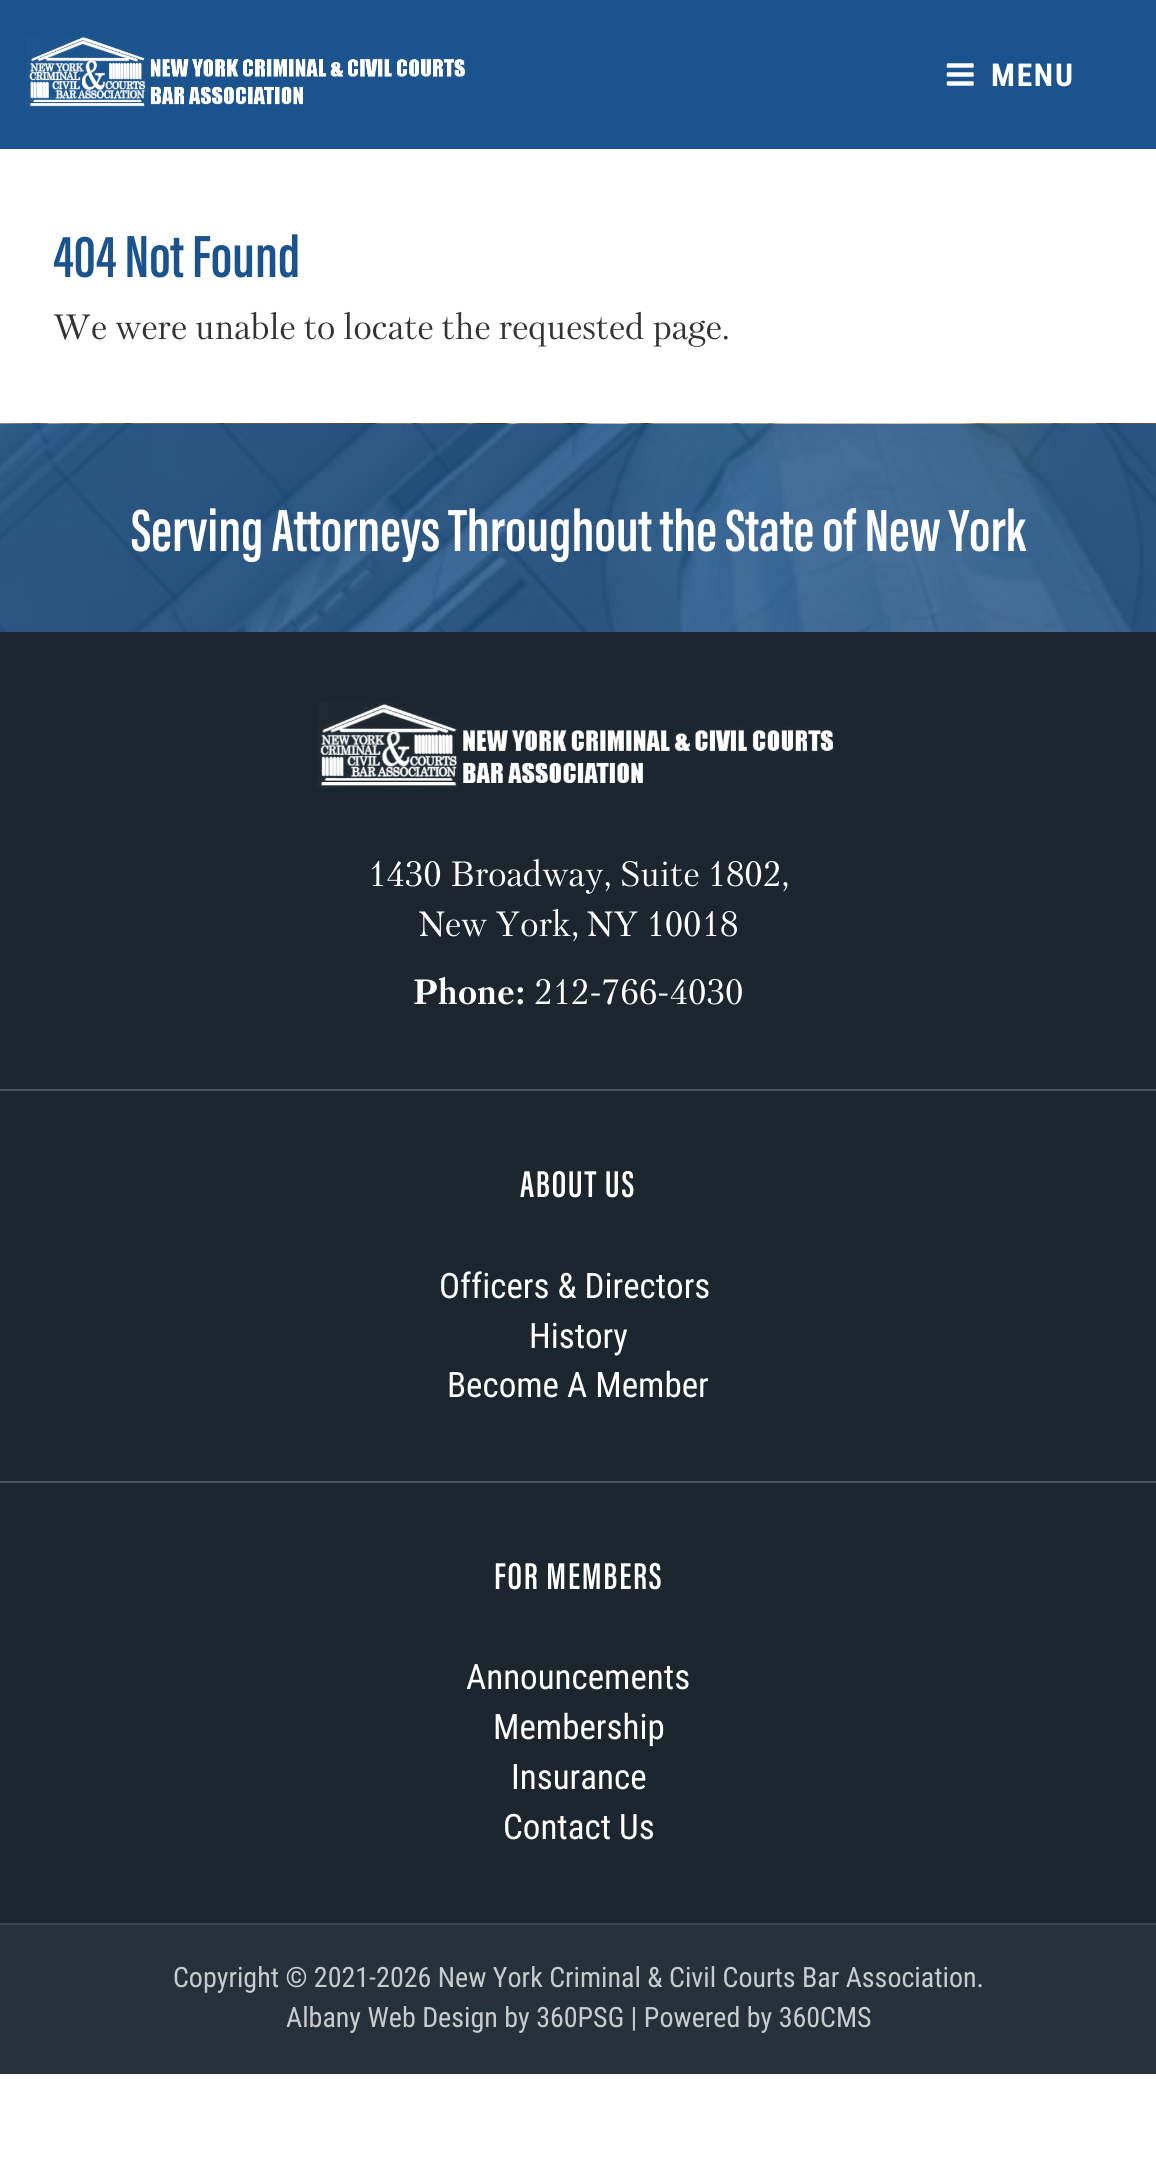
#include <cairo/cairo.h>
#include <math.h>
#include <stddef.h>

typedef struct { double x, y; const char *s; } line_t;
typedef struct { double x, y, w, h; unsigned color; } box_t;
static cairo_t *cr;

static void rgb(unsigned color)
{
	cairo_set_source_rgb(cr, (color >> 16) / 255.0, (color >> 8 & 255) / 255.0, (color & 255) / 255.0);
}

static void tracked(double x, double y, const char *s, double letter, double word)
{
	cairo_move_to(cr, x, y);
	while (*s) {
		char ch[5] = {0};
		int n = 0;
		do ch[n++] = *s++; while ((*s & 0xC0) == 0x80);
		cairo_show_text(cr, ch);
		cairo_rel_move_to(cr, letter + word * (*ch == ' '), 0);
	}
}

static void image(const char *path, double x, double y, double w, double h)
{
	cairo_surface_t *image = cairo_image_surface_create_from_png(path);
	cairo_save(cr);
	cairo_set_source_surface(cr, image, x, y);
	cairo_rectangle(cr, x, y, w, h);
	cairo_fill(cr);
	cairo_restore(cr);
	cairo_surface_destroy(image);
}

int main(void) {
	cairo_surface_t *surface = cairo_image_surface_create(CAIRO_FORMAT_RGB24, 1156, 2169);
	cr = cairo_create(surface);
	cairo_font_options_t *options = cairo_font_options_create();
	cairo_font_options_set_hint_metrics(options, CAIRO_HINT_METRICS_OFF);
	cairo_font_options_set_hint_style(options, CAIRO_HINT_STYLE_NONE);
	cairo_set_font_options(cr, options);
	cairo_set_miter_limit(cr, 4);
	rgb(0xffffff);
	cairo_paint(cr);
	rgb(0x1b538e);
	cairo_rectangle(cr, 0, 0, 1156, 149);
	cairo_fill(cr);
	image("img/1.png", 26, 35, 440, 74);
	image("img/2.png", 946, 63, 28, 23);
	image("img/3.png", 0, 423, 1156, 209);
	rgb(0x1d262f);
	cairo_rectangle(cr, 0, 632, 1156, 1291);
	cairo_fill(cr);
	image("img/4.png", 317, 702, 517, 86);
	{
		static const box_t items[] = {
			{0, 1089, 1156, 2, 0x4a5159},
			{0, 1481, 1156, 2, 0x4a5159},
			{0, 1925, 1156, 149, 0x283139},
			{0, 1923, 1156, 2, 0x3e464d},
		};
		for (size_t i = 0; i < sizeof items / sizeof *items; i++) {
			rgb(items[i].color);
			cairo_rectangle(cr, items[i].x, items[i].y, items[i].w, items[i].h);
			cairo_fill(cr);
		}
	}
	cairo_select_font_face(cr, "Roboto Condensed", CAIRO_FONT_SLANT_NORMAL, CAIRO_FONT_WEIGHT_BOLD);
	cairo_set_font_size(cr, 31.5);
	rgb(0xffffff);
	tracked(991, 86, "MENU", 1.75, 0);
	cairo_select_font_face(cr, "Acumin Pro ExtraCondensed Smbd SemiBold", CAIRO_FONT_SLANT_NORMAL, CAIRO_FONT_WEIGHT_NORMAL);
	cairo_set_font_size(cr, 61.25);
	rgb(0x1b538e);
	cairo_move_to(cr, 53, 277);
	cairo_show_text(cr, "404 Not Found");
	cairo_select_font_face(cr, "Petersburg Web", CAIRO_FONT_SLANT_NORMAL, CAIRO_FONT_WEIGHT_NORMAL);
	cairo_set_font_size(cr, 35);
	rgb(0x333333);
	cairo_move_to(cr, 53, 339);
	cairo_show_text(cr, "We were unable to locate the requested page.");
	cairo_select_font_face(cr, "Acumin Pro ExtraCondensed Smbd SemiBold", CAIRO_FONT_SLANT_NORMAL, CAIRO_FONT_WEIGHT_NORMAL);
	cairo_set_font_size(cr, 61.25);
	rgb(0xffffff);
	cairo_move_to(cr, 131, 551);
	cairo_show_text(cr, "Serving Attorneys Throughout the State of New York");
	cairo_select_font_face(cr, "Petersburg Web", CAIRO_FONT_SLANT_NORMAL, CAIRO_FONT_WEIGHT_NORMAL);
	cairo_set_font_size(cr, 35);
	cairo_move_to(cr, 368, 886);
	cairo_show_text(cr, "1430 Broadway, Suite 1802,");
	cairo_move_to(cr, 419, 936);
	cairo_show_text(cr, "New York, NY 10018");
	cairo_select_font_face(cr, "Petersburg Web", CAIRO_FONT_SLANT_NORMAL, CAIRO_FONT_WEIGHT_BOLD);
	cairo_move_to(cr, 413, 1004);
	cairo_show_text(cr, "Phone:");
	cairo_select_font_face(cr, "Petersburg Web", CAIRO_FONT_SLANT_NORMAL, CAIRO_FONT_WEIGHT_NORMAL);
	cairo_move_to(cr, 534, 1004);
	cairo_show_text(cr, "212-766-4030");
	cairo_select_font_face(cr, "Acumin Pro ExtraCondensed Smbd SemiBold", CAIRO_FONT_SLANT_NORMAL, CAIRO_FONT_WEIGHT_NORMAL);
	cairo_set_font_size(cr, 38.5);
	tracked(520, 1197, "ABOUT US", 1.75, 0);
	cairo_select_font_face(cr, "Roboto Condensed", CAIRO_FONT_SLANT_NORMAL, CAIRO_FONT_WEIGHT_NORMAL);
	cairo_set_font_size(cr, 35);
	{
		static const line_t items[] = {
			{439, 1298, "Officers & Directors"},
			{529, 1348, "History"},
			{447, 1397, "Become A Member"},
		};
		for (size_t i = 0; i < sizeof items / sizeof *items; i++) {
			cairo_move_to(cr, items[i].x, items[i].y);
			cairo_show_text(cr, items[i].s);
		}
	}
	cairo_select_font_face(cr, "Acumin Pro ExtraCondensed Smbd SemiBold", CAIRO_FONT_SLANT_NORMAL, CAIRO_FONT_WEIGHT_NORMAL);
	cairo_set_font_size(cr, 38.5);
	tracked(494, 1589, "FOR MEMBERS", 1.75, 0);
	cairo_select_font_face(cr, "Roboto Condensed", CAIRO_FONT_SLANT_NORMAL, CAIRO_FONT_WEIGHT_NORMAL);
	cairo_set_font_size(cr, 35);
	{
		static const line_t items[] = {
			{466, 1689, "Announcements"},
			{493, 1739, "Membership"},
			{511, 1789, "Insurance"},
			{503, 1839, "Contact Us"},
		};
		for (size_t i = 0; i < sizeof items / sizeof *items; i++) {
			cairo_move_to(cr, items[i].x, items[i].y);
			cairo_show_text(cr, items[i].s);
		}
	}
	cairo_set_font_size(cr, 28);
	rgb(0xc9ccce);
	cairo_move_to(cr, 173, 1987);
	cairo_show_text(cr, "Copyright © 2021-2026 New York Criminal & Civil Courts Bar Association.");
	cairo_move_to(cr, 286, 2027);
	cairo_show_text(cr, "Albany Web Design by 360PSG | Powered by 360CMS");
	cairo_surface_write_to_png(surface, "page.png");
	cairo_font_options_destroy(options);
	cairo_destroy(cr);
	cairo_surface_destroy(surface);
	return 0;
}
